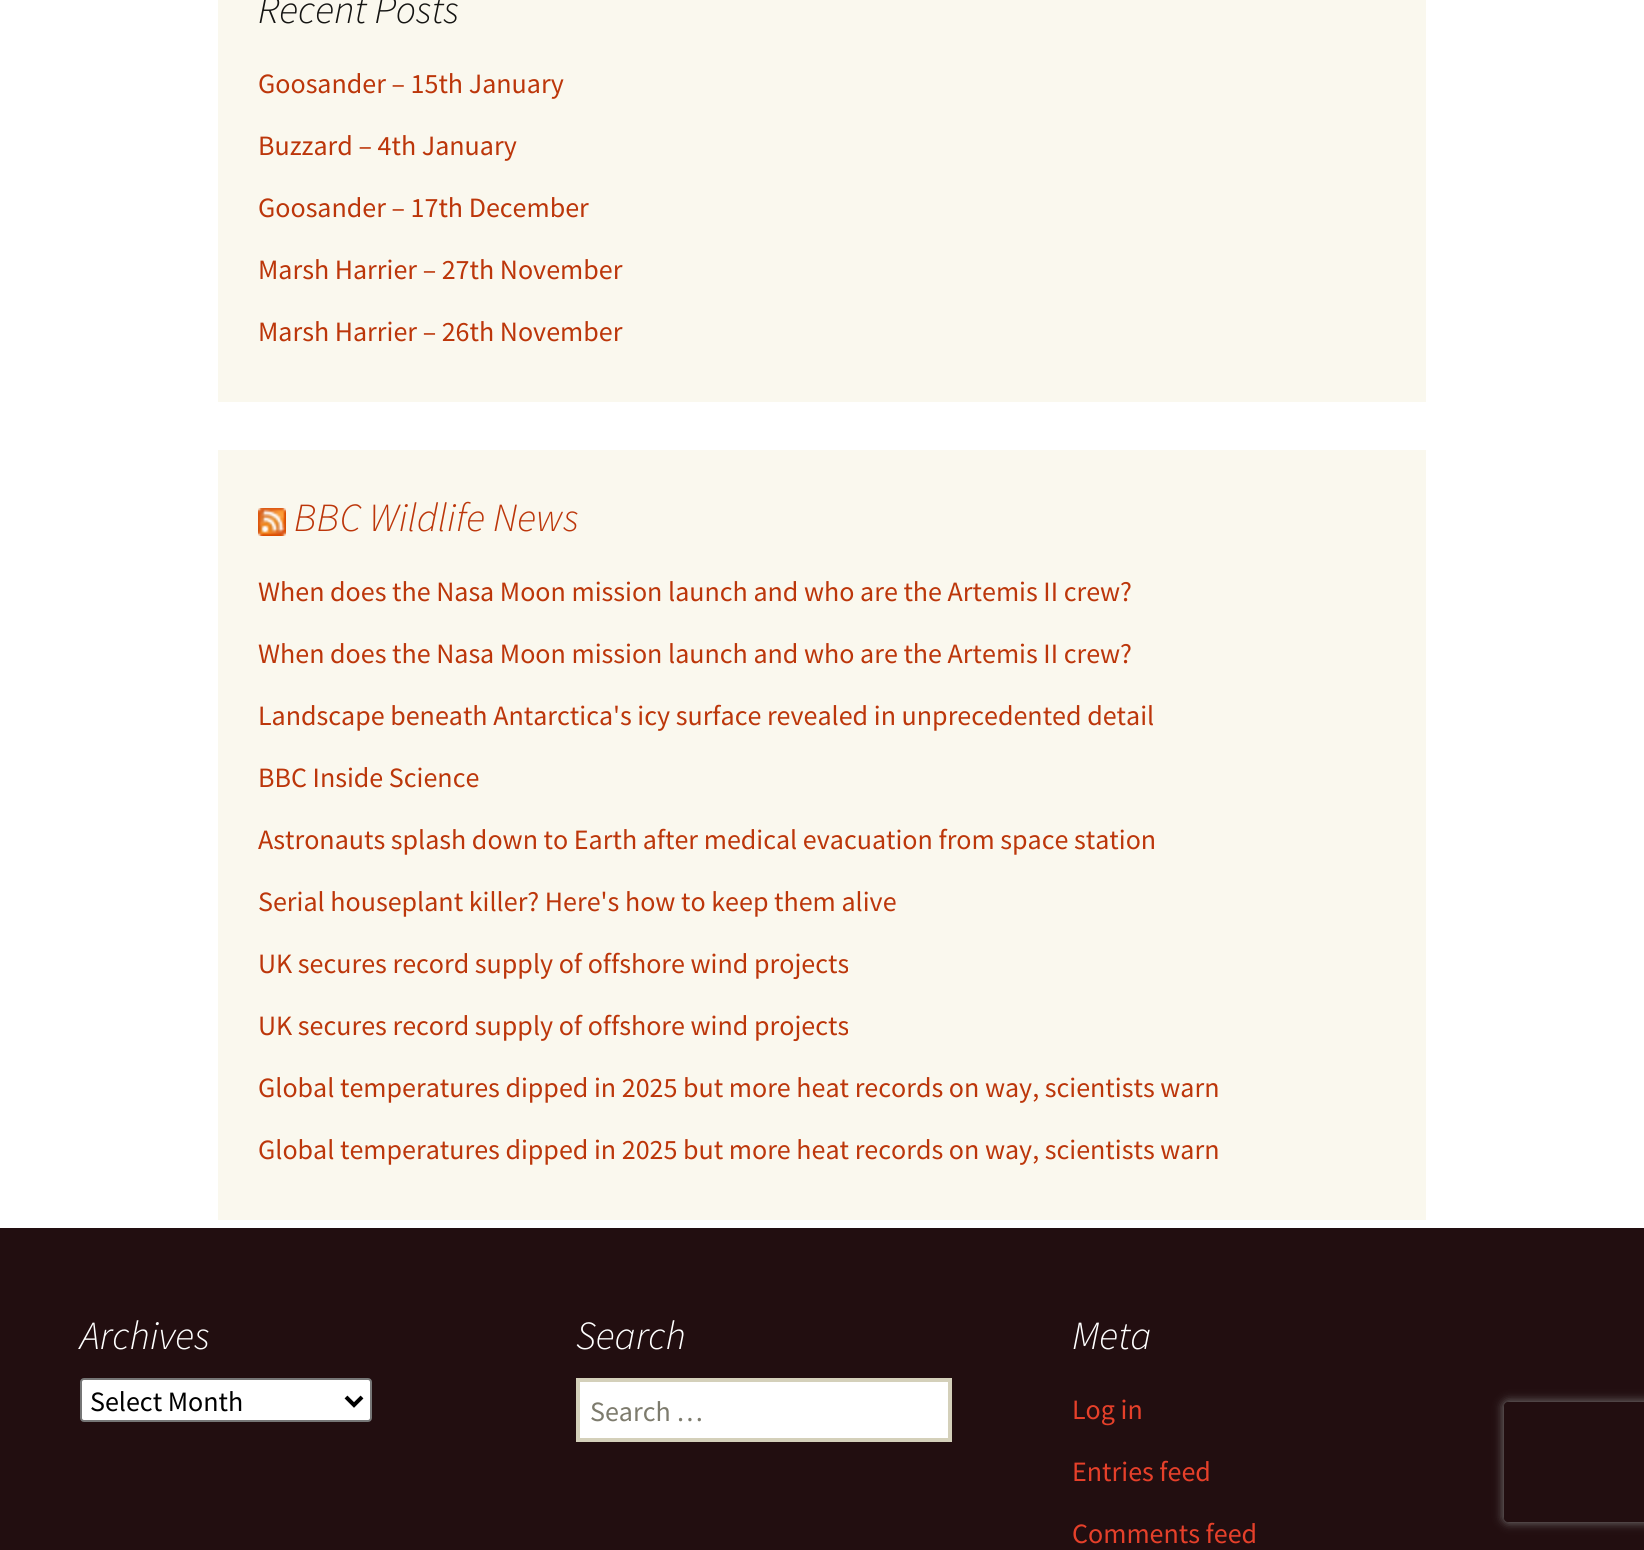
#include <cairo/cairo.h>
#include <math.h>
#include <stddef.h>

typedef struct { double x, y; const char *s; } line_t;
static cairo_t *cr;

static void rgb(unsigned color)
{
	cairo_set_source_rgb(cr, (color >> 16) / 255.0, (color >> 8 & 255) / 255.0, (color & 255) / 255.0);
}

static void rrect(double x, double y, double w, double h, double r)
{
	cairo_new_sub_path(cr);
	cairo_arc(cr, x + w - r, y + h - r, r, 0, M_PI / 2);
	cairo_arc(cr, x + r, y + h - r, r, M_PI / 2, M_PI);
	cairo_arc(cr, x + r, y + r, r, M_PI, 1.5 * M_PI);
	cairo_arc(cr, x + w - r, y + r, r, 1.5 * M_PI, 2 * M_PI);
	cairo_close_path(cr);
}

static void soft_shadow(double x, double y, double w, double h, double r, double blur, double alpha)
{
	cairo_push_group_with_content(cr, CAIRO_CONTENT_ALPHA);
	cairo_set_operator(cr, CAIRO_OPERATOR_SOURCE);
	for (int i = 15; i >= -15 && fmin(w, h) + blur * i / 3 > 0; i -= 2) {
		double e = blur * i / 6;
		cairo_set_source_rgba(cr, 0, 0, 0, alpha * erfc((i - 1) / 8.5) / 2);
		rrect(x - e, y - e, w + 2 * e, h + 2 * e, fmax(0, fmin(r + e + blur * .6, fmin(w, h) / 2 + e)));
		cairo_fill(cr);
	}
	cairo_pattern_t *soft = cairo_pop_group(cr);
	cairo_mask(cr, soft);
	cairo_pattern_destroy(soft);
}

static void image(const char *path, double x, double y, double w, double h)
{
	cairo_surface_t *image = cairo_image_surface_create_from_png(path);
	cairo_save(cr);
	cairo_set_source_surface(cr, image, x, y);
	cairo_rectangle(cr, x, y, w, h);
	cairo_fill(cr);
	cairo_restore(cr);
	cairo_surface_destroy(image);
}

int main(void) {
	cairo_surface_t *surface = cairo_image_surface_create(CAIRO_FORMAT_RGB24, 1644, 1550);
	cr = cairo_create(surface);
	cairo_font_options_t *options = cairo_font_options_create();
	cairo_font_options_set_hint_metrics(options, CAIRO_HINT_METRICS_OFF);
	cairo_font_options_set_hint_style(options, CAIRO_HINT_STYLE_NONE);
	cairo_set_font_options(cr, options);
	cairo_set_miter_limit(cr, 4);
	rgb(0xffffff);
	cairo_paint(cr);
	rgb(0xfaf8ee);
	cairo_rectangle(cr, 218, 0, 1208, 402);
	cairo_fill(cr);
	cairo_rectangle(cr, 218, 450, 1208, 770);
	cairo_fill(cr);
	image("img/1.png", 258, 508, 28, 28);
	rgb(0x220e10);
	cairo_rectangle(cr, 0, 1228, 1644, 322);
	cairo_fill(cr);
	rgb(0xffffff);
	rrect(81, 1379, 290, 42, 3);
	cairo_fill_preserve(cr);
	rgb(0x767676);
	cairo_stroke(cr);
	cairo_new_path(cr);
	cairo_move_to(cr, 346, 1397);
	cairo_line_to(cr, 354, 1405);
	cairo_line_to(cr, 362, 1397);
	rgb(0x000000);
	cairo_set_line_width(cr, 4);
	cairo_stroke(cr);
	rgb(0xffffff);
	cairo_rectangle(cr, 578, 1380, 372, 60);
	cairo_fill_preserve(cr);
	rgb(0xd4d0ba);
	cairo_stroke(cr);
	cairo_save(cr);
	cairo_set_fill_rule(cr, CAIRO_FILL_RULE_EVEN_ODD);
	cairo_new_path(cr);
	cairo_move_to(cr, 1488, 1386);
	cairo_line_to(cr, 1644, 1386);
	cairo_line_to(cr, 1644, 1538);
	cairo_line_to(cr, 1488, 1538);
	cairo_close_path(cr);
	cairo_move_to(cr, 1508, 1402);
	cairo_line_to(cr, 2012, 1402);
	cairo_curve_to(cr, 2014, 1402, 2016, 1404, 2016, 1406);
	cairo_line_to(cr, 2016, 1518);
	cairo_curve_to(cr, 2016, 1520, 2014, 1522, 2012, 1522);
	cairo_line_to(cr, 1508, 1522);
	cairo_curve_to(cr, 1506, 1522, 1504, 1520, 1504, 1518);
	cairo_line_to(cr, 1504, 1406);
	cairo_curve_to(cr, 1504, 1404, 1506, 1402, 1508, 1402);
	cairo_close_path(cr);
	cairo_clip(cr);
	rgb(0x808080);
	soft_shadow(1504, 1402, 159, 120, 4, 5, 1);
	cairo_restore(cr);
	cairo_select_font_face(cr, "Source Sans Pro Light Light", CAIRO_FONT_SLANT_ITALIC, CAIRO_FONT_WEIGHT_NORMAL);
	cairo_set_font_size(cr, 40);
	rgb(0x141412);
	cairo_move_to(cr, 258, 23);
	cairo_show_text(cr, "Recent Posts");
	cairo_select_font_face(cr, "Source Sans Pro", CAIRO_FONT_SLANT_NORMAL, CAIRO_FONT_WEIGHT_NORMAL);
	cairo_set_font_size(cr, 28);
	rgb(0xbc360a);
	{
		static const line_t items[] = {
			{258, 93, "Goosander – 15th January"},
			{258, 155, "Buzzard – 4th January"},
			{258, 217, "Goosander – 17th December"},
			{258, 279, "Marsh Harrier – 27th November"},
			{258, 341, "Marsh Harrier – 26th November"},
		};
		for (size_t i = 0; i < sizeof items / sizeof *items; i++) {
			cairo_move_to(cr, items[i].x, items[i].y);
			cairo_show_text(cr, items[i].s);
		}
	}
	cairo_select_font_face(cr, "Source Sans Pro Light Light", CAIRO_FONT_SLANT_ITALIC, CAIRO_FONT_WEIGHT_NORMAL);
	cairo_set_font_size(cr, 40);
	cairo_move_to(cr, 294, 531);
	cairo_show_text(cr, "BBC Wildlife News");
	cairo_select_font_face(cr, "Source Sans Pro", CAIRO_FONT_SLANT_NORMAL, CAIRO_FONT_WEIGHT_NORMAL);
	cairo_set_font_size(cr, 28);
	{
		static const line_t items[] = {
			{258, 601, "When does the Nasa Moon mission launch and who are the Artemis II crew?"},
			{258, 663, "When does the Nasa Moon mission launch and who are the Artemis II crew?"},
			{258, 725, "Landscape beneath Antarctica's icy surface revealed in unprecedented detail"},
			{258, 787, "BBC Inside Science"},
			{258, 849, "Astronauts splash down to Earth after medical evacuation from space station"},
			{258, 911, "Serial houseplant killer? Here's how to keep them alive"},
			{258, 973, "UK secures record supply of offshore wind projects"},
			{258, 1035, "UK secures record supply of offshore wind projects"},
			{258, 1097, "Global temperatures dipped in 2025 but more heat records on way, scientists warn"},
			{258, 1159, "Global temperatures dipped in 2025 but more heat records on way, scientists warn"},
		};
		for (size_t i = 0; i < sizeof items / sizeof *items; i++) {
			cairo_move_to(cr, items[i].x, items[i].y);
			cairo_show_text(cr, items[i].s);
		}
	}
	cairo_select_font_face(cr, "Source Sans Pro Light Light", CAIRO_FONT_SLANT_ITALIC, CAIRO_FONT_WEIGHT_NORMAL);
	cairo_set_font_size(cr, 40);
	rgb(0xffffff);
	cairo_move_to(cr, 80, 1349);
	cairo_show_text(cr, "Archives");
	cairo_select_font_face(cr, "Source Sans Pro", CAIRO_FONT_SLANT_NORMAL, CAIRO_FONT_WEIGHT_NORMAL);
	cairo_set_font_size(cr, 28);
	rgb(0x000000);
	cairo_move_to(cr, 90, 1411);
	cairo_show_text(cr, "Select Month");
	cairo_select_font_face(cr, "Source Sans Pro Light Light", CAIRO_FONT_SLANT_ITALIC, CAIRO_FONT_WEIGHT_NORMAL);
	cairo_set_font_size(cr, 40);
	rgb(0xffffff);
	cairo_move_to(cr, 576, 1349);
	cairo_show_text(cr, "Search");
	cairo_select_font_face(cr, "Source Sans Pro", CAIRO_FONT_SLANT_NORMAL, CAIRO_FONT_WEIGHT_NORMAL);
	cairo_set_font_size(cr, 28);
	rgb(0x7d7b6d);
	cairo_move_to(cr, 590, 1421);
	cairo_show_text(cr, "Search …");
	cairo_select_font_face(cr, "Source Sans Pro Light Light", CAIRO_FONT_SLANT_ITALIC, CAIRO_FONT_WEIGHT_NORMAL);
	cairo_set_font_size(cr, 40);
	rgb(0xffffff);
	cairo_move_to(cr, 1072, 1349);
	cairo_show_text(cr, "Meta");
	cairo_select_font_face(cr, "Source Sans Pro", CAIRO_FONT_SLANT_NORMAL, CAIRO_FONT_WEIGHT_NORMAL);
	cairo_set_font_size(cr, 28);
	rgb(0xe6402a);
	{
		static const line_t items[] = {
			{1072, 1419, "Log in"},
			{1072, 1481, "Entries feed"},
			{1072, 1543, "Comments feed"},
		};
		for (size_t i = 0; i < sizeof items / sizeof *items; i++) {
			cairo_move_to(cr, items[i].x, items[i].y);
			cairo_show_text(cr, items[i].s);
		}
	}
	cairo_surface_write_to_png(surface, "page.png");
	cairo_font_options_destroy(options);
	cairo_destroy(cr);
	cairo_surface_destroy(surface);
	return 0;
}
